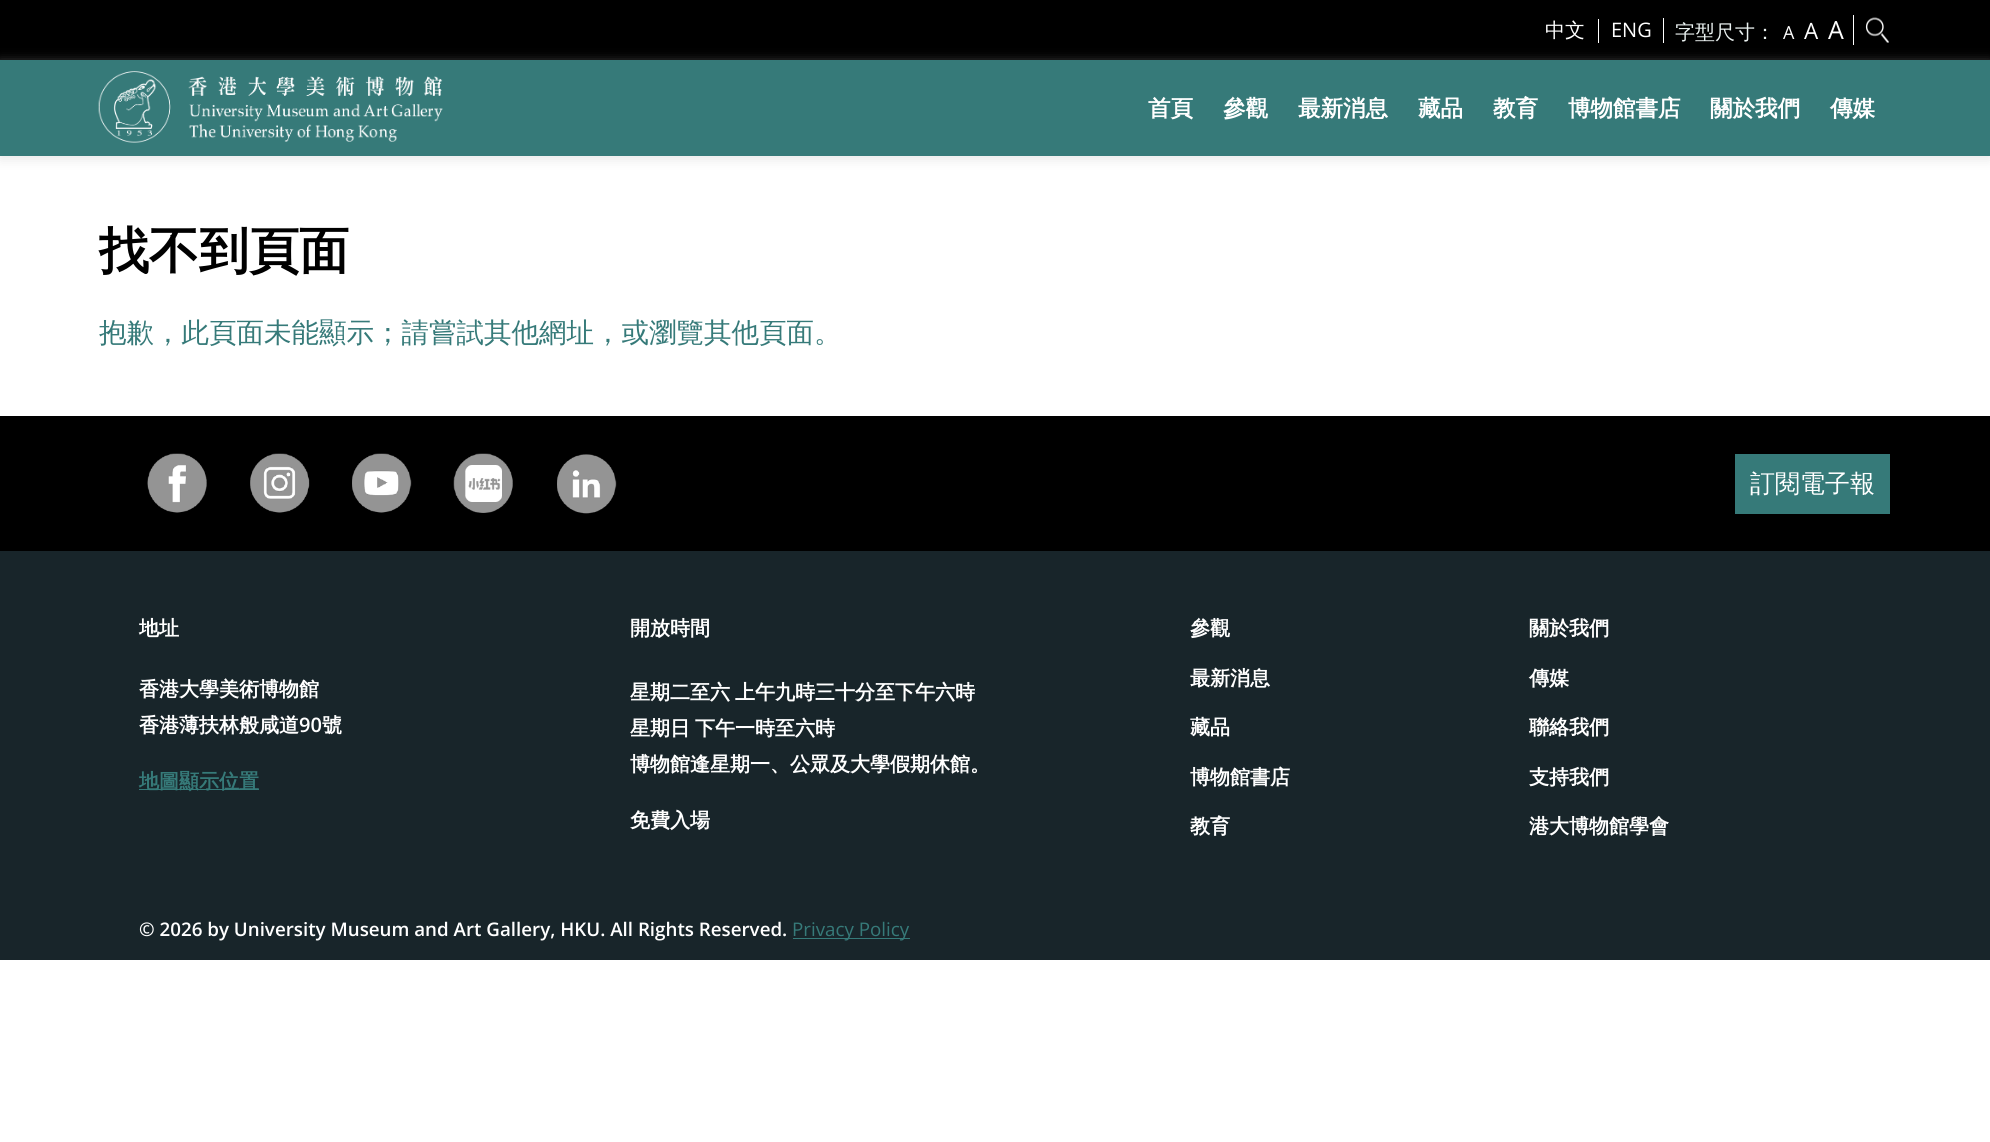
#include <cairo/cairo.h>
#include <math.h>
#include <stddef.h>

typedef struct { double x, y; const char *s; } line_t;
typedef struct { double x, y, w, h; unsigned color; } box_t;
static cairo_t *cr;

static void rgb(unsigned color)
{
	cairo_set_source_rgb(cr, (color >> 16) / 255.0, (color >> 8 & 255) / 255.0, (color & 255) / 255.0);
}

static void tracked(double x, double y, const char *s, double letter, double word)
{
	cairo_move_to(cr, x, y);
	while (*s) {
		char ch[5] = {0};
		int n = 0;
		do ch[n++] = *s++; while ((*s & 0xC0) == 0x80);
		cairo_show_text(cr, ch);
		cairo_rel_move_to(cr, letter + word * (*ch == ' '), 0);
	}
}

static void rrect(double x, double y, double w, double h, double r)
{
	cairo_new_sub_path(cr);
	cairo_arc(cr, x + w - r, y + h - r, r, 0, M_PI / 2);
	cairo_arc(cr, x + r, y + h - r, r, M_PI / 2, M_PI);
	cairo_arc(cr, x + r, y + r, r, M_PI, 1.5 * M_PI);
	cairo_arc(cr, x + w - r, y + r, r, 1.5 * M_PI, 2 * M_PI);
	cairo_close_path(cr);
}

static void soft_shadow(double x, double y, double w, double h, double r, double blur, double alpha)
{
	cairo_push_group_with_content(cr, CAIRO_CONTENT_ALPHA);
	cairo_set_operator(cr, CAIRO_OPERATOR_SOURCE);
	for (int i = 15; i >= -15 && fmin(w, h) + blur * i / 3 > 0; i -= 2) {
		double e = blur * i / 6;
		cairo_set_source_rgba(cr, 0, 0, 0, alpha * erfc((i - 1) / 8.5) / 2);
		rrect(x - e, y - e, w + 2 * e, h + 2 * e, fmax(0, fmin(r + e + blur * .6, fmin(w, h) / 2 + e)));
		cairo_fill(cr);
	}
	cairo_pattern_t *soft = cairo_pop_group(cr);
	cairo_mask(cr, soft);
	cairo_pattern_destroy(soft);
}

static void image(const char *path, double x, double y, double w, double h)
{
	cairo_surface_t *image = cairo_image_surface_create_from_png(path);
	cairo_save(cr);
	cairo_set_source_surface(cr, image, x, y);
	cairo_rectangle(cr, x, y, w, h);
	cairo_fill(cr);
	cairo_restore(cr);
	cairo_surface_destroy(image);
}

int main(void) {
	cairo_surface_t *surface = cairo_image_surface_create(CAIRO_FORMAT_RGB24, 1990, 1142);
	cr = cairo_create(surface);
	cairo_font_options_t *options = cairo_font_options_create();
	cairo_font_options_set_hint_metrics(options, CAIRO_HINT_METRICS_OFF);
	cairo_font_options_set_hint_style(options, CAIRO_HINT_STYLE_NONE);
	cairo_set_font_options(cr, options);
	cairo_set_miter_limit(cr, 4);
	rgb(0xffffff);
	cairo_paint(cr);
	{
		static const box_t items[] = {
			{0, 0, 1990, 60, 0x000000},
			{1663, 18, 1, 25, 0xffffff},
			{1598, 19, 1, 24, 0xffffff},
		};
		for (size_t i = 0; i < sizeof items / sizeof *items; i++) {
			rgb(items[i].color);
			cairo_rectangle(cr, items[i].x, items[i].y, items[i].w, items[i].h);
			cairo_fill(cr);
		}
	}
	rgb(0xcccccc);
	soft_shadow(0, 63, 1990, 96, 0, 6, 0.46);
	rgb(0xffffff);
	cairo_rectangle(cr, 1853, 15, 1, 30);
	cairo_fill(cr);
	image("img/1.png", 1865, 17, 24, 26);
	rgb(0x367a79);
	cairo_rectangle(cr, 0, 60, 1990, 96);
	cairo_fill(cr);
	image("img/2.png", 98, 71, 345, 72);
	rgb(0x18252a);
	cairo_rectangle(cr, 0, 551, 1990, 409);
	cairo_fill(cr);
	rgb(0x000000);
	cairo_rectangle(cr, 0, 416, 1990, 135);
	cairo_fill(cr);
	image("img/3.png", 147, 453, 60, 60);
	image("img/4.png", 250, 453, 60, 60);
	image("img/5.png", 352, 453, 60, 60);
	image("img/6.png", 453, 453, 60, 60);
	image("img/7.png", 557, 454, 60, 60);
	{
		static const box_t items[] = {
			{1735, 454, 155, 60, 0x367a79},
			{139, 789, 120, 1, 0x367a79},
			{793, 938, 117, 1, 0x367a79},
		};
		for (size_t i = 0; i < sizeof items / sizeof *items; i++) {
			rgb(items[i].color);
			cairo_rectangle(cr, items[i].x, items[i].y, items[i].w, items[i].h);
			cairo_fill(cr);
		}
	}
	cairo_select_font_face(cr, "WenQuanYi Zen Hei Medium", CAIRO_FONT_SLANT_NORMAL, CAIRO_FONT_WEIGHT_NORMAL);
	cairo_set_font_size(cr, 20);
	rgb(0xffffff);
	cairo_move_to(cr, 1545, 37);
	cairo_show_text(cr, "中文");
	cairo_select_font_face(cr, "Open Sans", CAIRO_FONT_SLANT_NORMAL, CAIRO_FONT_WEIGHT_NORMAL);
	cairo_move_to(cr, 1611, 37);
	cairo_show_text(cr, "ENG");
	cairo_select_font_face(cr, "WenQuanYi Zen Hei Medium", CAIRO_FONT_SLANT_NORMAL, CAIRO_FONT_WEIGHT_NORMAL);
	rgb(0xebf2f1);
	cairo_move_to(cr, 1675, 39);
	cairo_show_text(cr, "字型尺寸：");
	cairo_select_font_face(cr, "Open Sans", CAIRO_FONT_SLANT_NORMAL, CAIRO_FONT_WEIGHT_NORMAL);
	cairo_set_font_size(cr, 18);
	rgb(0xffffff);
	cairo_move_to(cr, 1783, 39);
	cairo_show_text(cr, "A");
	cairo_set_font_size(cr, 22.5);
	cairo_move_to(cr, 1804, 39);
	cairo_show_text(cr, "A");
	cairo_set_font_size(cr, 25);
	cairo_move_to(cr, 1828, 39);
	cairo_show_text(cr, "A");
	cairo_select_font_face(cr, "WenQuanYi Zen Hei", CAIRO_FONT_SLANT_NORMAL, CAIRO_FONT_WEIGHT_BOLD);
	cairo_set_font_size(cr, 22.5);
	{
		static const line_t items[] = {
			{1148, 116, "首頁"},
			{1223, 116, "參觀"},
			{1298, 116, "最新消息"},
			{1418, 116, "藏品"},
			{1493, 116, "教育"},
			{1568, 116, "博物館書店"},
			{1710, 116, "關於我們"},
			{1830, 116, "傳媒"},
		};
		for (size_t i = 0; i < sizeof items / sizeof *items; i++) {
			cairo_move_to(cr, items[i].x, items[i].y);
			cairo_show_text(cr, items[i].s);
		}
	}
	cairo_set_font_size(cr, 50);
	rgb(0x000000);
	cairo_move_to(cr, 99, 268);
	cairo_show_text(cr, "找不到頁面");
	cairo_select_font_face(cr, "WenQuanYi Zen Hei Medium", CAIRO_FONT_SLANT_NORMAL, CAIRO_FONT_WEIGHT_NORMAL);
	cairo_set_font_size(cr, 27.5);
	rgb(0x367a79);
	cairo_move_to(cr, 99, 342);
	cairo_show_text(cr, "抱歉，此頁面未能顯示；請嘗試其他網址，或瀏覽其他頁面。");
	cairo_set_font_size(cr, 25);
	rgb(0xffffff);
	cairo_move_to(cr, 1750, 492);
	cairo_show_text(cr, "訂閱電子報");
	cairo_select_font_face(cr, "WenQuanYi Zen Hei", CAIRO_FONT_SLANT_NORMAL, CAIRO_FONT_WEIGHT_BOLD);
	cairo_set_font_size(cr, 20);
	{
		static const line_t items[] = {
			{139, 635, "地址"},
			{139, 696, "香港大學美術博物館"},
			{139, 732, "香港薄扶林般咸道"},
		};
		for (size_t i = 0; i < sizeof items / sizeof *items; i++) {
			cairo_move_to(cr, items[i].x, items[i].y);
			cairo_show_text(cr, items[i].s);
		}
	}
	cairo_select_font_face(cr, "Open Sans SemiBold", CAIRO_FONT_SLANT_NORMAL, CAIRO_FONT_WEIGHT_NORMAL);
	cairo_move_to(cr, 299, 732);
	cairo_show_text(cr, "90");
	cairo_select_font_face(cr, "WenQuanYi Zen Hei", CAIRO_FONT_SLANT_NORMAL, CAIRO_FONT_WEIGHT_BOLD);
	cairo_move_to(cr, 322, 732);
	cairo_show_text(cr, "號");
	rgb(0x367a79);
	cairo_move_to(cr, 139, 788);
	cairo_show_text(cr, "地圖顯示位置");
	rgb(0xffffff);
	cairo_move_to(cr, 630, 635);
	cairo_show_text(cr, "開放時間");
	tracked(630, 699, "星期二至六 上午九時三十分至下午六時", 0, -1);
	tracked(630, 735, "星期日 下午一時至六時", 0, -1);
	{
		static const line_t items[] = {
			{630, 771, "博物館逢星期一、公眾及大學假期休館。"},
			{630, 827, "免費入場"},
			{1190, 635, "參觀"},
			{1529, 635, "關於我們"},
			{1190, 685, "最新消息"},
			{1529, 685, "傳媒"},
			{1190, 734, "藏品"},
			{1529, 734, "聯絡我們"},
			{1190, 784, "博物館書店"},
			{1529, 784, "支持我們"},
			{1190, 833, "教育"},
			{1529, 833, "港大博物館學會"},
		};
		for (size_t i = 0; i < sizeof items / sizeof *items; i++) {
			cairo_move_to(cr, items[i].x, items[i].y);
			cairo_show_text(cr, items[i].s);
		}
	}
	cairo_select_font_face(cr, "Open Sans SemiBold", CAIRO_FONT_SLANT_NORMAL, CAIRO_FONT_WEIGHT_NORMAL);
	cairo_set_font_size(cr, 18.75);
	cairo_move_to(cr, 139, 936);
	cairo_show_text(cr, "© 2026 by University Museum and Art Gallery, HKU. All Rights Reserved.");
	cairo_select_font_face(cr, "Open Sans", CAIRO_FONT_SLANT_NORMAL, CAIRO_FONT_WEIGHT_NORMAL);
	rgb(0x367a79);
	cairo_move_to(cr, 792, 936);
	cairo_show_text(cr, "Privacy Policy");
	cairo_surface_write_to_png(surface, "page.png");
	cairo_font_options_destroy(options);
	cairo_destroy(cr);
	cairo_surface_destroy(surface);
	return 0;
}
